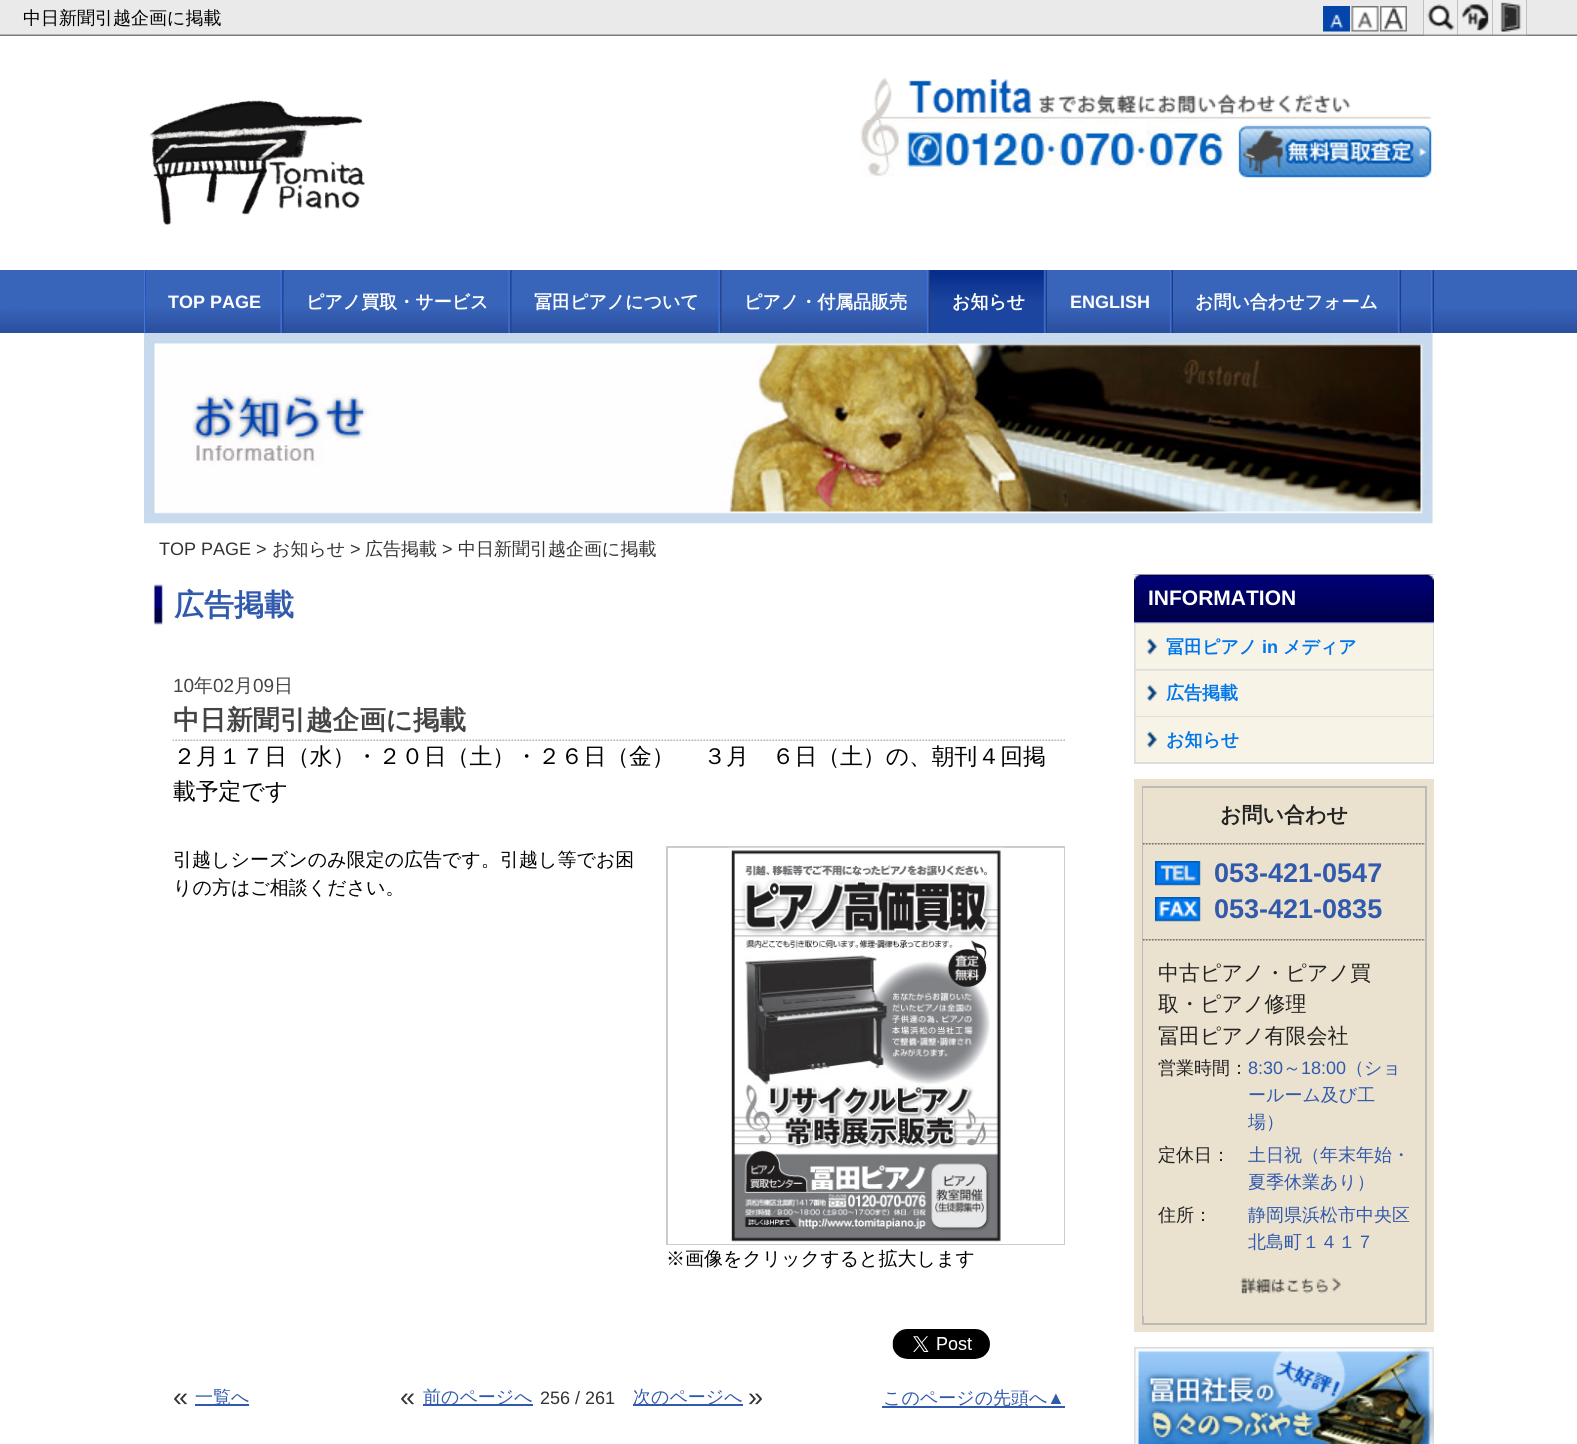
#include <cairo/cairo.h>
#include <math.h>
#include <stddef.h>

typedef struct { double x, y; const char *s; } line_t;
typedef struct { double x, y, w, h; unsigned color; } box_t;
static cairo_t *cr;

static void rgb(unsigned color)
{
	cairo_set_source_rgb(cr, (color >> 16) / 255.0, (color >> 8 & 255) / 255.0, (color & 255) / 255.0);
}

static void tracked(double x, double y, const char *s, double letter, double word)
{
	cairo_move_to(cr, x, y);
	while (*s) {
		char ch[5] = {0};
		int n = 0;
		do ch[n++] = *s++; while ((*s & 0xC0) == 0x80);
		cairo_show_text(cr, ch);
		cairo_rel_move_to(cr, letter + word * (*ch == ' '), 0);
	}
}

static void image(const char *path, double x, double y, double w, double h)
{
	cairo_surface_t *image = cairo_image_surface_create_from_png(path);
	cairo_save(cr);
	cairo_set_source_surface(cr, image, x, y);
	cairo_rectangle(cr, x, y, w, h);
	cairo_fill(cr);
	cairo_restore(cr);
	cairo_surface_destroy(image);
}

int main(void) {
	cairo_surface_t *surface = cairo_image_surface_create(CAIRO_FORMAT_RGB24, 1577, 1444);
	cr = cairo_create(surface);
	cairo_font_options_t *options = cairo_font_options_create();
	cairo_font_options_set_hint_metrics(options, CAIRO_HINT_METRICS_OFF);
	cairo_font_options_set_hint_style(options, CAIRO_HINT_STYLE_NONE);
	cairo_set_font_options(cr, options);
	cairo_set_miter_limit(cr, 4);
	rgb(0xffffff);
	cairo_paint(cr);
	image("img/1.png", 0, 0, 1577, 36);
	image("img/2.png", 1323, 6, 27, 26);
	image("img/3.png", 1351, 6, 28, 26);
	image("img/4.png", 1380, 6, 27, 26);
	image("img/5.png", 1423, 0, 35, 36);
	image("img/6.png", 1423, 0, 35, 36);
	image("img/7.png", 1458, 35, 35, 1);
	image("img/8.png", 1458, 0, 35, 35);
	image("img/9.png", 1492, 0, 35, 36);
	image("img/10.png", 1492, 0, 35, 35);
	image("img/11.png", 150, 100, 215, 125);
	image("img/12.png", 869, 78, 563, 42);
	image("img/13.png", 860, 120, 370, 58);
	image("img/14.png", 1238, 125, 194, 53);
	image("img/15.png", 0, 270, 1577, 63);
	image("img/16.png", 144, 270, 1290, 63);
	image("img/17.png", 145, 270, 139, 63);
	image("img/19.png", 283, 270, 229, 63);
	image("img/18.png", 145, 270, 139, 63);
	image("img/21.png", 511, 270, 211, 63);
	image("img/20.png", 283, 270, 229, 63);
	image("img/23.png", 721, 270, 209, 63);
	image("img/22.png", 511, 270, 211, 63);
	image("img/24.png", 721, 270, 207, 63);
	image("img/25.png", 930, 270, 117, 63);
	image("img/26.png", 1171, 270, 2, 63);
	image("img/27.png", 1047, 270, 124, 63);
	image("img/26.png", 1399, 270, 2, 63);
	image("img/28.png", 1173, 270, 226, 63);
	image("img/29.png", 144, 333, 1289, 191);
	image("img/30.png", 153, 584, 11, 41);
	image("img/31.png", 172, 739, 893, 2);
	cairo_rectangle(cr, 667, 847, 397, 397);
	rgb(0xcccccc);
	cairo_stroke(cr);
	rgb(0xffffff);
	cairo_rectangle(cr, 668, 848, 396, 396);
	cairo_fill(cr);
	image("img/32.png", 729, 847, 275, 395);
	image("img/33.png", 892, 1329, 98, 30);
	{
		static const box_t items[] = {
			{195, 1404, 54, 2, 0x3159ac},
			{423, 1404, 110, 2, 0x3159ac},
			{633, 1404, 110, 2, 0x3159ac},
			{882, 1406, 183, 2, 0x3159ac},
		};
		for (size_t i = 0; i < sizeof items / sizeof *items; i++) {
			rgb(items[i].color);
			cairo_rectangle(cr, items[i].x, items[i].y, items[i].w, items[i].h);
			cairo_fill(cr);
		}
	}
	image("img/34.png", 1134, 574, 300, 49);
	image("img/35.png", 1134, 574, 300, 47);
	{
		static const box_t items[] = {
			{1433, 623, 1, 141, 0xdddddd},
			{1134, 762, 300, 2, 0xdddddd},
			{1134, 623, 2, 141, 0xdddddd},
			{1136, 623, 297, 1, 0xdddddd},
		};
		for (size_t i = 0; i < sizeof items / sizeof *items; i++) {
			rgb(items[i].color);
			cairo_rectangle(cr, items[i].x, items[i].y, items[i].w, items[i].h);
			cairo_fill(cr);
		}
	}
	image("img/36.png", 1135, 624, 1, 45);
	rgb(0xf7f3e7);
	cairo_rectangle(cr, 1157, 624, 276, 45);
	cairo_fill(cr);
	image("img/37.png", 1135, 624, 22, 45);
	rgb(0xdddddd);
	cairo_rectangle(cr, 1136, 669, 297, 2);
	cairo_fill(cr);
	image("img/38.png", 1135, 670, 298, 46);
	rgb(0xf7f3e7);
	cairo_rectangle(cr, 1136, 671, 297, 45);
	cairo_fill(cr);
	image("img/39.png", 1135, 670, 298, 46);
	rgb(0xdddddd);
	cairo_rectangle(cr, 1136, 716, 297, 1);
	cairo_fill(cr);
	image("img/36.png", 1135, 717, 1, 45);
	rgb(0xf7f3e7);
	cairo_rectangle(cr, 1157, 717, 276, 45);
	cairo_fill(cr);
	image("img/37.png", 1135, 717, 22, 45);
	rgb(0xeae2cf);
	cairo_rectangle(cr, 1134, 779, 300, 553);
	cairo_fill(cr);
	cairo_rectangle(cr, 1143, 787, 283, 537);
	rgb(0xbbbbbb);
	cairo_stroke(cr);
	rgb(0xeae2cf);
	cairo_rectangle(cr, 1143, 788, 1, 528);
	cairo_fill(cr);
	image("img/40.png", 1143, 843, 282, 2);
	image("img/41.png", 1155, 861, 46, 25);
	image("img/42.png", 1155, 897, 46, 25);
	image("img/40.png", 1143, 939, 282, 2);
	image("img/43.png", 1240, 1277, 101, 17);
	image("img/44.png", 1134, 1347, 300, 97);
	cairo_select_font_face(cr, "WenQuanYi Zen Hei Medium", CAIRO_FONT_SLANT_NORMAL, CAIRO_FONT_WEIGHT_NORMAL);
	cairo_set_font_size(cr, 18);
	rgb(0x000000);
	cairo_move_to(cr, 23, 24);
	cairo_show_text(cr, "中日新聞引越企画に掲載");
	cairo_select_font_face(cr, "Liberation Sans", CAIRO_FONT_SLANT_NORMAL, CAIRO_FONT_WEIGHT_BOLD);
	rgb(0xffffff);
	cairo_move_to(cr, 168, 308);
	cairo_show_text(cr, "TOP PAGE");
	cairo_select_font_face(cr, "WenQuanYi Zen Hei", CAIRO_FONT_SLANT_NORMAL, CAIRO_FONT_WEIGHT_BOLD);
	{
		static const line_t items[] = {
			{306, 308, "ピアノ買取・サービス"},
			{534, 308, "冨田ピアノについて"},
			{744, 308, "ピアノ・付属品販売"},
			{952, 308, "お知らせ"},
		};
		for (size_t i = 0; i < sizeof items / sizeof *items; i++) {
			cairo_move_to(cr, items[i].x, items[i].y);
			cairo_show_text(cr, items[i].s);
		}
	}
	cairo_select_font_face(cr, "Liberation Sans", CAIRO_FONT_SLANT_NORMAL, CAIRO_FONT_WEIGHT_BOLD);
	cairo_move_to(cr, 1070, 308);
	cairo_show_text(cr, "ENGLISH");
	cairo_select_font_face(cr, "WenQuanYi Zen Hei", CAIRO_FONT_SLANT_NORMAL, CAIRO_FONT_WEIGHT_BOLD);
	cairo_move_to(cr, 1195, 308);
	cairo_show_text(cr, "お問い合わせフォーム");
	cairo_select_font_face(cr, "Liberation Sans", CAIRO_FONT_SLANT_NORMAL, CAIRO_FONT_WEIGHT_NORMAL);
	rgb(0x333333);
	cairo_move_to(cr, 159, 555);
	cairo_show_text(cr, "TOP PAGE >");
	cairo_select_font_face(cr, "WenQuanYi Zen Hei Medium", CAIRO_FONT_SLANT_NORMAL, CAIRO_FONT_WEIGHT_NORMAL);
	cairo_move_to(cr, 272, 555);
	cairo_show_text(cr, "お知らせ");
	cairo_select_font_face(cr, "Liberation Sans", CAIRO_FONT_SLANT_NORMAL, CAIRO_FONT_WEIGHT_NORMAL);
	cairo_move_to(cr, 350, 555);
	cairo_show_text(cr, ">");
	cairo_select_font_face(cr, "WenQuanYi Zen Hei Medium", CAIRO_FONT_SLANT_NORMAL, CAIRO_FONT_WEIGHT_NORMAL);
	cairo_move_to(cr, 365, 555);
	cairo_show_text(cr, "広告掲載");
	cairo_select_font_face(cr, "Liberation Sans", CAIRO_FONT_SLANT_NORMAL, CAIRO_FONT_WEIGHT_NORMAL);
	cairo_move_to(cr, 442, 555);
	cairo_show_text(cr, ">");
	cairo_select_font_face(cr, "WenQuanYi Zen Hei Medium", CAIRO_FONT_SLANT_NORMAL, CAIRO_FONT_WEIGHT_NORMAL);
	cairo_move_to(cr, 458, 555);
	cairo_show_text(cr, "中日新聞引越企画に掲載");
	cairo_select_font_face(cr, "WenQuanYi Zen Hei", CAIRO_FONT_SLANT_NORMAL, CAIRO_FONT_WEIGHT_BOLD);
	cairo_set_font_size(cr, 30);
	rgb(0x3159ac);
	cairo_move_to(cr, 174, 615);
	cairo_show_text(cr, "広告掲載");
	cairo_select_font_face(cr, "Liberation Sans", CAIRO_FONT_SLANT_NORMAL, CAIRO_FONT_WEIGHT_NORMAL);
	cairo_set_font_size(cr, 19);
	rgb(0x444444);
	cairo_move_to(cr, 173, 692);
	cairo_show_text(cr, "10");
	cairo_select_font_face(cr, "WenQuanYi Zen Hei Medium", CAIRO_FONT_SLANT_NORMAL, CAIRO_FONT_WEIGHT_NORMAL);
	cairo_move_to(cr, 194, 692);
	cairo_show_text(cr, "年");
	cairo_select_font_face(cr, "Liberation Sans", CAIRO_FONT_SLANT_NORMAL, CAIRO_FONT_WEIGHT_NORMAL);
	cairo_move_to(cr, 213, 692);
	cairo_show_text(cr, "02");
	cairo_select_font_face(cr, "WenQuanYi Zen Hei Medium", CAIRO_FONT_SLANT_NORMAL, CAIRO_FONT_WEIGHT_NORMAL);
	cairo_move_to(cr, 234, 692);
	cairo_show_text(cr, "月");
	cairo_select_font_face(cr, "Liberation Sans", CAIRO_FONT_SLANT_NORMAL, CAIRO_FONT_WEIGHT_NORMAL);
	cairo_move_to(cr, 253, 692);
	cairo_show_text(cr, "09");
	cairo_select_font_face(cr, "WenQuanYi Zen Hei Medium", CAIRO_FONT_SLANT_NORMAL, CAIRO_FONT_WEIGHT_NORMAL);
	cairo_move_to(cr, 274, 692);
	cairo_show_text(cr, "日");
	cairo_select_font_face(cr, "WenQuanYi Zen Hei", CAIRO_FONT_SLANT_NORMAL, CAIRO_FONT_WEIGHT_BOLD);
	cairo_set_font_size(cr, 26.6);
	cairo_move_to(cr, 173, 729);
	cairo_show_text(cr, "中日新聞引越企画に掲載");
	cairo_select_font_face(cr, "WenQuanYi Zen Hei Medium", CAIRO_FONT_SLANT_NORMAL, CAIRO_FONT_WEIGHT_NORMAL);
	cairo_set_font_size(cr, 22.8);
	rgb(0x000000);
	tracked(173, 764, "２月１７日（水）・２０日（土）・２６日（金） 　３月　６日（土）の、朝刊４回掲", 0, -1);
	cairo_move_to(cr, 173, 799);
	cairo_show_text(cr, "載予定です");
	cairo_set_font_size(cr, 19);
	{
		static const line_t items[] = {
			{173, 866, "引越しシーズンのみ限定の広告です。引越し等でお困"},
			{173, 894, "りの方はご相談ください。"},
			{666, 1265, "※画像をクリックすると拡大します"},
		};
		for (size_t i = 0; i < sizeof items / sizeof *items; i++) {
			cairo_move_to(cr, items[i].x, items[i].y);
			cairo_show_text(cr, items[i].s);
		}
	}
	cairo_select_font_face(cr, "Liberation Sans", CAIRO_FONT_SLANT_NORMAL, CAIRO_FONT_WEIGHT_NORMAL);
	cairo_set_font_size(cr, 27);
	rgb(0x333333);
	cairo_move_to(cr, 173, 1406);
	cairo_show_text(cr, "«");
	cairo_select_font_face(cr, "WenQuanYi Zen Hei Medium", CAIRO_FONT_SLANT_NORMAL, CAIRO_FONT_WEIGHT_NORMAL);
	cairo_set_font_size(cr, 18);
	rgb(0x3159ac);
	cairo_move_to(cr, 195, 1403);
	cairo_show_text(cr, "一覧へ");
	cairo_select_font_face(cr, "Liberation Sans", CAIRO_FONT_SLANT_NORMAL, CAIRO_FONT_WEIGHT_NORMAL);
	cairo_set_font_size(cr, 27);
	rgb(0x333333);
	cairo_move_to(cr, 400, 1406);
	cairo_show_text(cr, "«");
	cairo_select_font_face(cr, "WenQuanYi Zen Hei Medium", CAIRO_FONT_SLANT_NORMAL, CAIRO_FONT_WEIGHT_NORMAL);
	cairo_set_font_size(cr, 18);
	rgb(0x3159ac);
	cairo_move_to(cr, 423, 1403);
	cairo_show_text(cr, "前のページへ");
	cairo_select_font_face(cr, "Liberation Sans", CAIRO_FONT_SLANT_NORMAL, CAIRO_FONT_WEIGHT_NORMAL);
	rgb(0x333333);
	cairo_move_to(cr, 540, 1404);
	cairo_show_text(cr, "256 / 261");
	cairo_select_font_face(cr, "WenQuanYi Zen Hei Medium", CAIRO_FONT_SLANT_NORMAL, CAIRO_FONT_WEIGHT_NORMAL);
	rgb(0x3159ac);
	cairo_move_to(cr, 633, 1403);
	cairo_show_text(cr, "次のページへ");
	cairo_select_font_face(cr, "Liberation Sans", CAIRO_FONT_SLANT_NORMAL, CAIRO_FONT_WEIGHT_NORMAL);
	cairo_set_font_size(cr, 27);
	rgb(0x333333);
	cairo_move_to(cr, 748, 1406);
	cairo_show_text(cr, "»");
	cairo_select_font_face(cr, "WenQuanYi Zen Hei Medium", CAIRO_FONT_SLANT_NORMAL, CAIRO_FONT_WEIGHT_NORMAL);
	cairo_set_font_size(cr, 18);
	rgb(0x3159ac);
	cairo_move_to(cr, 883, 1404);
	cairo_show_text(cr, "このページの先頭へ");
	cairo_select_font_face(cr, "Liberation Sans", CAIRO_FONT_SLANT_NORMAL, CAIRO_FONT_WEIGHT_NORMAL);
	cairo_move_to(cr, 1047, 1404);
	cairo_show_text(cr, "▲");
	cairo_select_font_face(cr, "Liberation Sans", CAIRO_FONT_SLANT_NORMAL, CAIRO_FONT_WEIGHT_BOLD);
	cairo_set_font_size(cr, 21);
	rgb(0xffffff);
	cairo_move_to(cr, 1148, 605);
	cairo_show_text(cr, "INFORMATION");
	cairo_select_font_face(cr, "WenQuanYi Zen Hei", CAIRO_FONT_SLANT_NORMAL, CAIRO_FONT_WEIGHT_BOLD);
	cairo_set_font_size(cr, 18);
	rgb(0x0076eb);
	cairo_move_to(cr, 1166, 653);
	cairo_show_text(cr, "冨田ピアノ");
	cairo_select_font_face(cr, "Liberation Sans", CAIRO_FONT_SLANT_NORMAL, CAIRO_FONT_WEIGHT_BOLD);
	cairo_move_to(cr, 1262, 653);
	cairo_show_text(cr, "in");
	cairo_select_font_face(cr, "WenQuanYi Zen Hei", CAIRO_FONT_SLANT_NORMAL, CAIRO_FONT_WEIGHT_BOLD);
	{
		static const line_t items[] = {
			{1283, 653, "メディア"},
			{1166, 699, "広告掲載"},
			{1166, 746, "お知らせ"},
		};
		for (size_t i = 0; i < sizeof items / sizeof *items; i++) {
			cairo_move_to(cr, items[i].x, items[i].y);
			cairo_show_text(cr, items[i].s);
		}
	}
	cairo_set_font_size(cr, 21);
	rgb(0x222222);
	cairo_move_to(cr, 1220, 822);
	cairo_show_text(cr, "お問い合わせ");
	cairo_select_font_face(cr, "Liberation Sans", CAIRO_FONT_SLANT_NORMAL, CAIRO_FONT_WEIGHT_BOLD);
	cairo_set_font_size(cr, 27);
	rgb(0x3159ac);
	cairo_move_to(cr, 1214, 882);
	cairo_show_text(cr, "053-421-0547");
	cairo_move_to(cr, 1214, 918);
	cairo_show_text(cr, "053-421-0835");
	cairo_select_font_face(cr, "WenQuanYi Zen Hei Medium", CAIRO_FONT_SLANT_NORMAL, CAIRO_FONT_WEIGHT_NORMAL);
	cairo_set_font_size(cr, 21);
	rgb(0x222222);
	{
		static const line_t items[] = {
			{1158, 980, "中古ピアノ・ピアノ買"},
			{1158, 1011, "取・ピアノ修理"},
			{1158, 1043, "冨田ピアノ有限会社"},
		};
		for (size_t i = 0; i < sizeof items / sizeof *items; i++) {
			cairo_move_to(cr, items[i].x, items[i].y);
			cairo_show_text(cr, items[i].s);
		}
	}
	cairo_set_font_size(cr, 18);
	cairo_move_to(cr, 1158, 1074);
	cairo_show_text(cr, "営業時間：");
	cairo_select_font_face(cr, "Liberation Sans", CAIRO_FONT_SLANT_NORMAL, CAIRO_FONT_WEIGHT_NORMAL);
	rgb(0x3159ac);
	cairo_move_to(cr, 1248, 1074);
	cairo_show_text(cr, "8:30");
	cairo_select_font_face(cr, "WenQuanYi Zen Hei Medium", CAIRO_FONT_SLANT_NORMAL, CAIRO_FONT_WEIGHT_NORMAL);
	cairo_move_to(cr, 1283, 1074);
	cairo_show_text(cr, "～");
	cairo_select_font_face(cr, "Liberation Sans", CAIRO_FONT_SLANT_NORMAL, CAIRO_FONT_WEIGHT_NORMAL);
	cairo_move_to(cr, 1301, 1074);
	cairo_show_text(cr, "18:00");
	cairo_select_font_face(cr, "WenQuanYi Zen Hei Medium", CAIRO_FONT_SLANT_NORMAL, CAIRO_FONT_WEIGHT_NORMAL);
	{
		static const line_t items[] = {
			{1346, 1074, "（ショ"},
			{1248, 1101, "ールーム及び工"},
			{1248, 1128, "場）"},
		};
		for (size_t i = 0; i < sizeof items / sizeof *items; i++) {
			cairo_move_to(cr, items[i].x, items[i].y);
			cairo_show_text(cr, items[i].s);
		}
	}
	rgb(0x222222);
	cairo_move_to(cr, 1158, 1161);
	cairo_show_text(cr, "定休日：");
	rgb(0x3159ac);
	cairo_move_to(cr, 1248, 1161);
	cairo_show_text(cr, "土日祝（年末年始・");
	cairo_move_to(cr, 1248, 1188);
	cairo_show_text(cr, "夏季休業あり）");
	rgb(0x222222);
	cairo_move_to(cr, 1158, 1221);
	cairo_show_text(cr, "住所：");
	rgb(0x3159ac);
	cairo_move_to(cr, 1248, 1221);
	cairo_show_text(cr, "静岡県浜松市中央区");
	cairo_move_to(cr, 1248, 1248);
	cairo_show_text(cr, "北島町１４１７");
	cairo_surface_write_to_png(surface, "page.png");
	cairo_font_options_destroy(options);
	cairo_destroy(cr);
	cairo_surface_destroy(surface);
	return 0;
}
